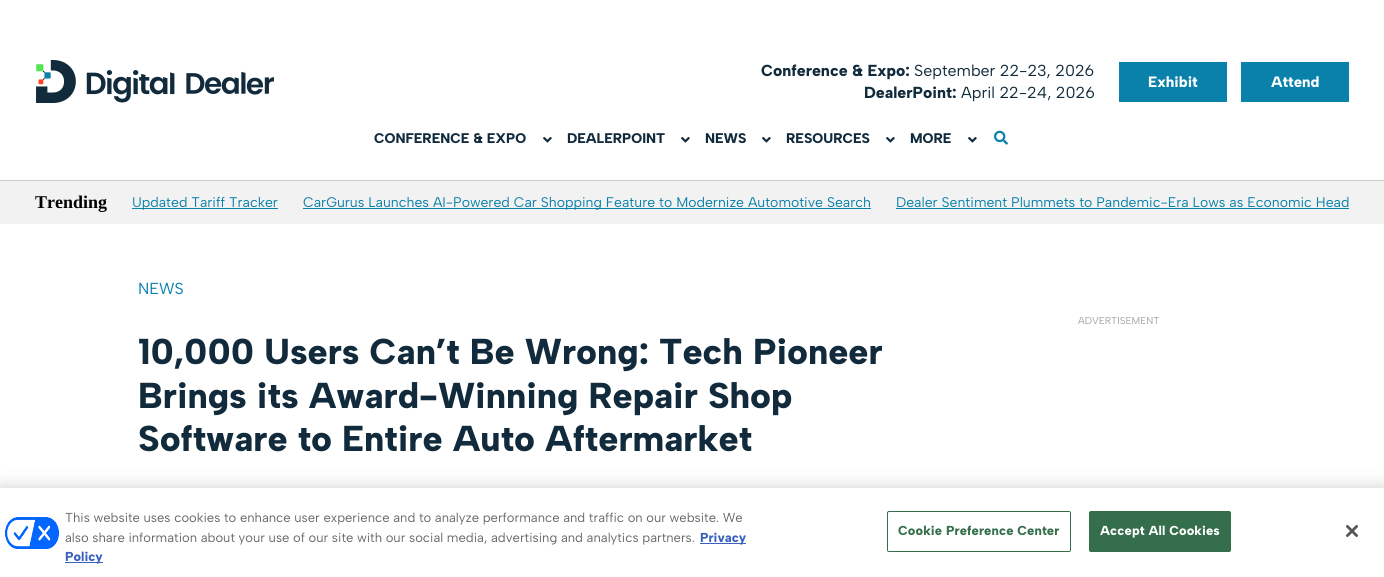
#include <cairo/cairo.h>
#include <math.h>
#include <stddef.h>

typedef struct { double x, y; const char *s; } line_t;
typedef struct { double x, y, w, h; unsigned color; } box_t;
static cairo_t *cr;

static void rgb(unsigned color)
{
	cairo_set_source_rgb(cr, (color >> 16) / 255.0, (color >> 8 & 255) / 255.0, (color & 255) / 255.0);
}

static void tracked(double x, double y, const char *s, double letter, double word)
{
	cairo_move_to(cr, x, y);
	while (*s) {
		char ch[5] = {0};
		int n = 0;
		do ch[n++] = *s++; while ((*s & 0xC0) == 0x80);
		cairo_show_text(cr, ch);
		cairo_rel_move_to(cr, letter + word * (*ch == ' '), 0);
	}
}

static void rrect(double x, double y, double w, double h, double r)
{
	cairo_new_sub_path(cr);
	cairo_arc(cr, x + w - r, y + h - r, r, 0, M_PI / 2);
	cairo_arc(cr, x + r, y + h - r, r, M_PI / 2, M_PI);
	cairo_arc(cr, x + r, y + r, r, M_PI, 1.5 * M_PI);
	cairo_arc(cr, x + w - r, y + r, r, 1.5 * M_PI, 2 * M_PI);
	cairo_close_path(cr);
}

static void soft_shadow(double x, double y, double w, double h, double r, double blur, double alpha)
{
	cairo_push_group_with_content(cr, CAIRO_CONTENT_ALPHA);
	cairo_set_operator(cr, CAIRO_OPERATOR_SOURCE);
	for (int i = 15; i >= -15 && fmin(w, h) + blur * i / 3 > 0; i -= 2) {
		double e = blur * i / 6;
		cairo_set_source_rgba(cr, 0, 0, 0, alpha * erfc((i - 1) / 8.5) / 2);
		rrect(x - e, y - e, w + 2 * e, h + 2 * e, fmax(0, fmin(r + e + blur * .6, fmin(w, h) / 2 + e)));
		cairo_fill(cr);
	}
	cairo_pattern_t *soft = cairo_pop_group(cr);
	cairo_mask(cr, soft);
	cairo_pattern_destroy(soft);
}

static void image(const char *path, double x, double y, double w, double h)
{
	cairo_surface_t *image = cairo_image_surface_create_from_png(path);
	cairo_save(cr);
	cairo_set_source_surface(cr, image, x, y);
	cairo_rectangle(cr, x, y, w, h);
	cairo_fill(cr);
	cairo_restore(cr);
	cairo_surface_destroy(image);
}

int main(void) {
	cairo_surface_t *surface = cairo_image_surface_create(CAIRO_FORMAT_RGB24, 1384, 577);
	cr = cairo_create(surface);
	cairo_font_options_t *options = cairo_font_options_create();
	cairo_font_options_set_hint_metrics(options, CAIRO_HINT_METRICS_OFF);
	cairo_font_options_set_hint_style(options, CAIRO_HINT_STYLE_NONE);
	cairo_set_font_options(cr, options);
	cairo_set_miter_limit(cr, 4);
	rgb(0xffffff);
	cairo_paint(cr);
	rgb(0xcccccc);
	cairo_rectangle(cr, 0, 180, 1384, 1);
	cairo_fill(cr);
	image("img/1.png", 36, 60, 238, 43);
	rgb(0x0a81ab);
	cairo_rectangle(cr, 1119, 62, 108, 40);
	cairo_fill(cr);
	cairo_rectangle(cr, 1241, 62, 108, 40);
	cairo_fill(cr);
	image("img/2.png", 543, 137, 9, 6);
	image("img/2.png", 681, 137, 9, 6);
	image("img/2.png", 762, 137, 9, 6);
	image("img/2.png", 886, 137, 9, 6);
	image("img/2.png", 968, 137, 9, 6);
	image("img/3.png", 994, 130, 14, 15);
	{
		static const box_t items[] = {
			{0, 181, 1384, 43, 0xf2f2f2},
			{132, 208, 146, 1, 0x0a81ab},
			{303, 208, 568, 1, 0x0a81ab},
			{896, 208, 453, 1, 0x0a81ab},
		};
		for (size_t i = 0; i < sizeof items / sizeof *items; i++) {
			rgb(items[i].color);
			cairo_rectangle(cr, items[i].x, items[i].y, items[i].w, items[i].h);
			cairo_fill(cr);
		}
	}
	rgb(0x000000);
	soft_shadow(0, 488, 1384, 89, 0, 9, 0.2);
	rgb(0xffffff);
	cairo_rectangle(cr, 0, 488, 1384, 89);
	cairo_fill(cr);
	image("img/4.png", 4, 517, 56, 32);
	rgb(0x3860be);
	cairo_rectangle(cr, 700, 543, 46, 1);
	cairo_fill(cr);
	cairo_rectangle(cr, 65, 562, 38, 1);
	cairo_fill(cr);
	rrect(887.5, 511.5, 183, 40, 1.5);
	rgb(0x346e4a);
	cairo_set_line_width(cr, 1);
	cairo_stroke(cr);
	rrect(1089.5, 511.5, 141, 40, 1.5);
	cairo_fill_preserve(cr);
	cairo_stroke(cr);
	image("img/5.png", 1346, 525, 12, 12);
	cairo_select_font_face(cr, "Albert Sans ExtraBold", CAIRO_FONT_SLANT_NORMAL, CAIRO_FONT_WEIGHT_NORMAL);
	cairo_set_font_size(cr, 16);
	rgb(0x112b3c);
	cairo_move_to(cr, 761, 76);
	cairo_show_text(cr, "Conference & Expo:");
	cairo_select_font_face(cr, "Albert Sans", CAIRO_FONT_SLANT_NORMAL, CAIRO_FONT_WEIGHT_NORMAL);
	cairo_move_to(cr, 914, 76);
	cairo_show_text(cr, "September 22-23, 2026");
	cairo_select_font_face(cr, "Albert Sans ExtraBold", CAIRO_FONT_SLANT_NORMAL, CAIRO_FONT_WEIGHT_NORMAL);
	cairo_move_to(cr, 864, 98);
	cairo_show_text(cr, "DealerPoint:");
	cairo_select_font_face(cr, "Albert Sans", CAIRO_FONT_SLANT_NORMAL, CAIRO_FONT_WEIGHT_NORMAL);
	cairo_move_to(cr, 961, 98);
	cairo_show_text(cr, "April 22-24, 2026");
	cairo_select_font_face(cr, "Albert Sans ExtraBold", CAIRO_FONT_SLANT_NORMAL, CAIRO_FONT_WEIGHT_NORMAL);
	cairo_set_font_size(cr, 15);
	rgb(0xffffff);
	cairo_move_to(cr, 1148, 87);
	cairo_show_text(cr, "Exhibit");
	cairo_move_to(cr, 1271, 87);
	cairo_show_text(cr, "Attend");
	cairo_set_font_size(cr, 14);
	rgb(0x112b3c);
	{
		static const line_t items[] = {
			{374, 143, "CONFERENCE & EXPO"},
			{567, 143, "DEALERPOINT"},
			{705, 143, "NEWS"},
			{786, 143, "RESOURCES"},
			{910, 143, "MORE"},
		};
		for (size_t i = 0; i < sizeof items / sizeof *items; i++) {
			cairo_move_to(cr, items[i].x, items[i].y);
			cairo_show_text(cr, items[i].s);
		}
	}
	cairo_save(cr);
	cairo_rectangle(cr, 35, 189, 1314, 27);
	cairo_clip(cr);
	cairo_select_font_face(cr, "Liberation Serif", CAIRO_FONT_SLANT_NORMAL, CAIRO_FONT_WEIGHT_BOLD);
	cairo_set_font_size(cr, 18);
	rgb(0x000000);
	cairo_move_to(cr, 35, 208);
	cairo_show_text(cr, "Trending");
	cairo_restore(cr);
	cairo_select_font_face(cr, "Albert Sans", CAIRO_FONT_SLANT_NORMAL, CAIRO_FONT_WEIGHT_NORMAL);
	rgb(0x0a81ab);
	{
		static const line_t items[] = {
			{132, 207, "Updated Tariff Tracker"},
			{303, 207, "CarGurus Launches AI-Powered Car Shopping Feature to Modernize Automotive Search"},
			{896, 207, "Dealer Sentiment Plummets to Pandemic-Era Lows as Economic Head"},
		};
		for (size_t i = 0; i < sizeof items / sizeof *items; i++) {
			cairo_move_to(cr, items[i].x, items[i].y);
			cairo_show_text(cr, items[i].s);
		}
	}
	cairo_set_font_size(cr, 16);
	cairo_move_to(cr, 138, 294);
	cairo_show_text(cr, "NEWS");
	cairo_select_font_face(cr, "Albert Sans ExtraBold", CAIRO_FONT_SLANT_NORMAL, CAIRO_FONT_WEIGHT_NORMAL);
	cairo_set_font_size(cr, 36);
	rgb(0x112b3c);
	{
		static const line_t items[] = {
			{138, 364, "10,000 Users Can’t Be Wrong: Tech Pioneer"},
			{138, 408, "Brings its Award-Winning Repair Shop"},
			{138, 451, "Software to Entire Auto Aftermarket"},
		};
		for (size_t i = 0; i < sizeof items / sizeof *items; i++) {
			cairo_move_to(cr, items[i].x, items[i].y);
			cairo_show_text(cr, items[i].s);
		}
	}
	cairo_select_font_face(cr, "Albert Sans", CAIRO_FONT_SLANT_NORMAL, CAIRO_FONT_WEIGHT_NORMAL);
	cairo_set_font_size(cr, 10);
	rgb(0xa3a3a3);
	cairo_move_to(cr, 1078, 324);
	cairo_show_text(cr, "ADVERTISEMENT");
	cairo_set_font_size(cr, 13);
	rgb(0x696969);
	cairo_move_to(cr, 65, 522);
	cairo_show_text(cr, "This website uses cookies to enhance user experience and to analyze performance and traffic on our website. We");
	cairo_move_to(cr, 65, 542);
	cairo_show_text(cr, "also share information about your use of our site with our social media, advertising and analytics partners.");
	cairo_select_font_face(cr, "Albert Sans ExtraBold", CAIRO_FONT_SLANT_NORMAL, CAIRO_FONT_WEIGHT_NORMAL);
	rgb(0x3860be);
	cairo_move_to(cr, 700, 542);
	cairo_show_text(cr, "Privacy");
	cairo_move_to(cr, 65, 561);
	cairo_show_text(cr, "Policy");
	rgb(0x346e4a);
	tracked(898, 535, "Cookie Preference Center", 0.1, 0);
	rgb(0xffffff);
	tracked(1100, 535, "Accept All Cookies", 0.1, 0);
	cairo_surface_write_to_png(surface, "page.png");
	cairo_font_options_destroy(options);
	cairo_destroy(cr);
	cairo_surface_destroy(surface);
	return 0;
}
